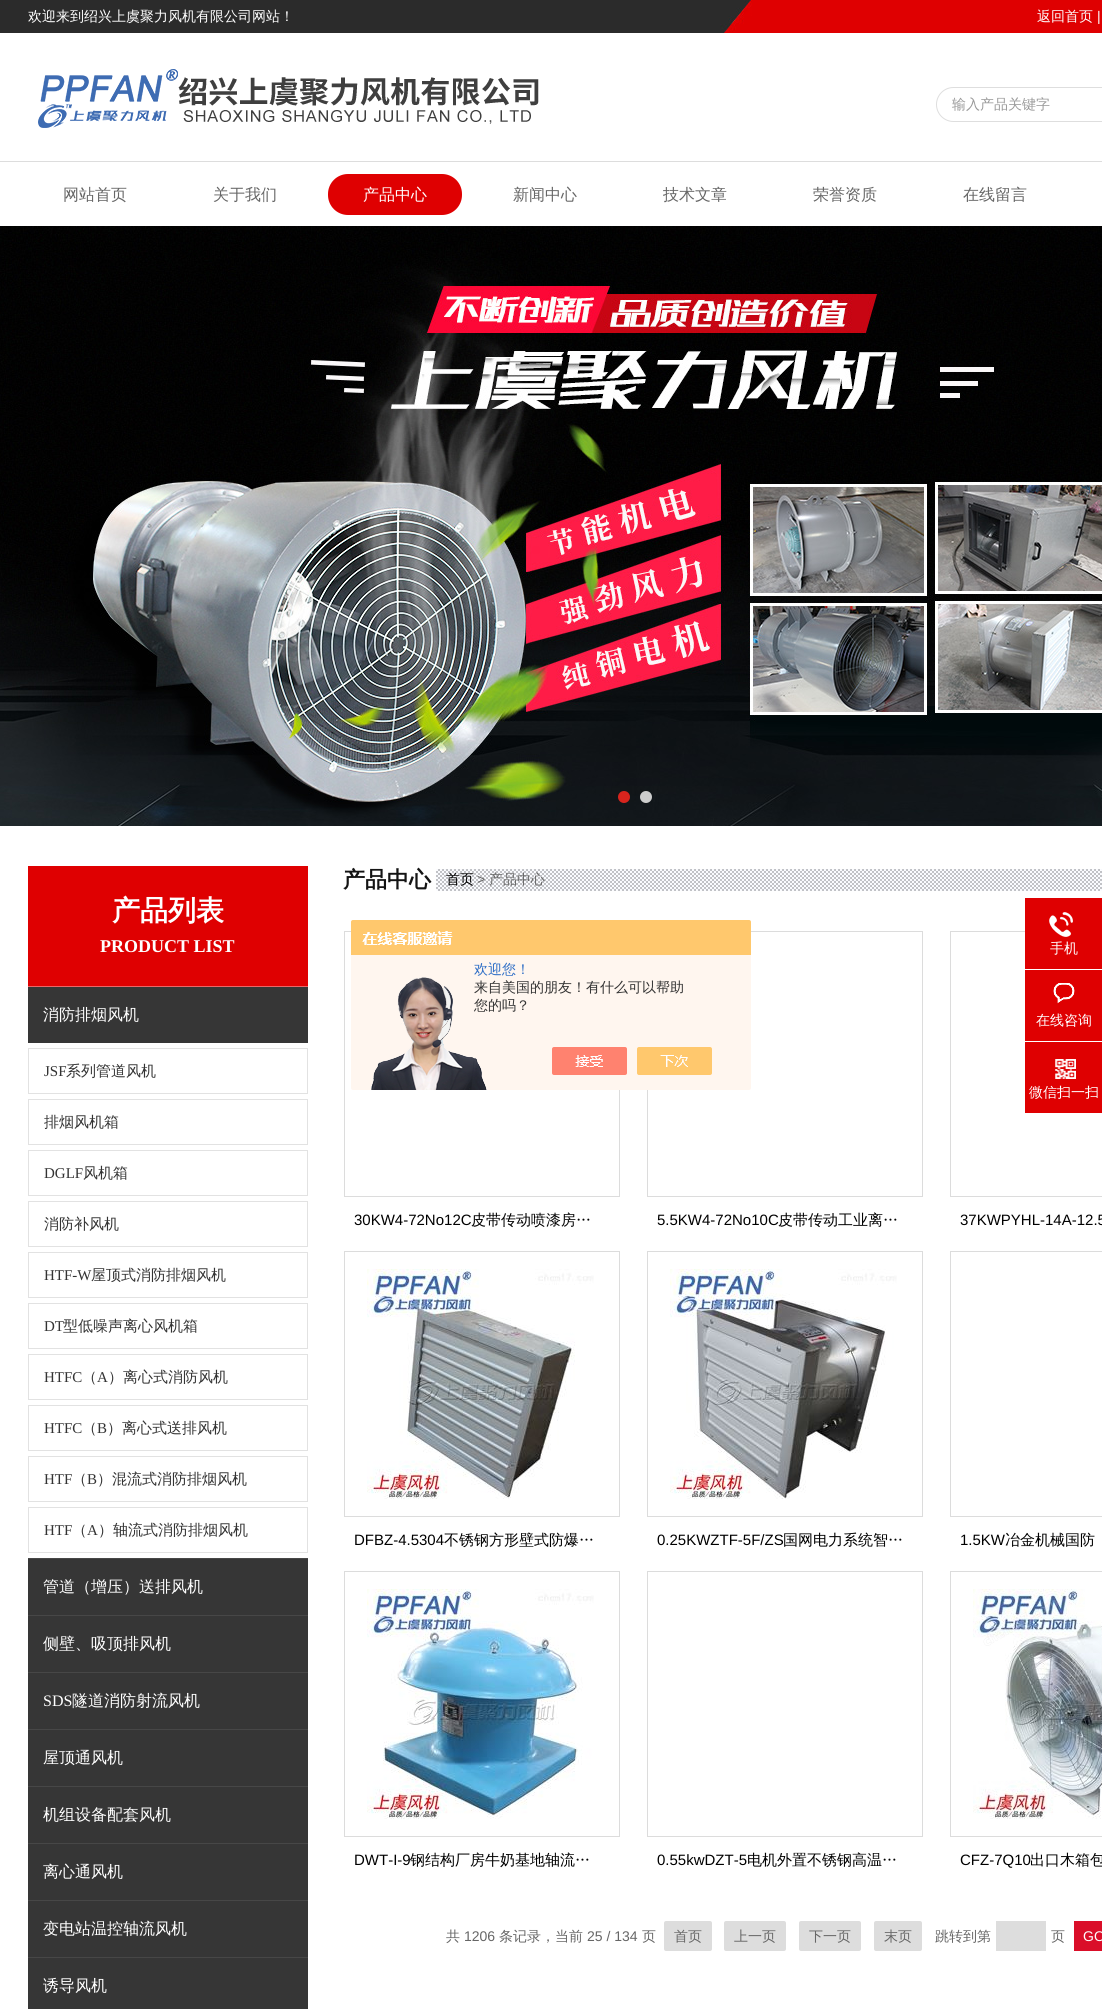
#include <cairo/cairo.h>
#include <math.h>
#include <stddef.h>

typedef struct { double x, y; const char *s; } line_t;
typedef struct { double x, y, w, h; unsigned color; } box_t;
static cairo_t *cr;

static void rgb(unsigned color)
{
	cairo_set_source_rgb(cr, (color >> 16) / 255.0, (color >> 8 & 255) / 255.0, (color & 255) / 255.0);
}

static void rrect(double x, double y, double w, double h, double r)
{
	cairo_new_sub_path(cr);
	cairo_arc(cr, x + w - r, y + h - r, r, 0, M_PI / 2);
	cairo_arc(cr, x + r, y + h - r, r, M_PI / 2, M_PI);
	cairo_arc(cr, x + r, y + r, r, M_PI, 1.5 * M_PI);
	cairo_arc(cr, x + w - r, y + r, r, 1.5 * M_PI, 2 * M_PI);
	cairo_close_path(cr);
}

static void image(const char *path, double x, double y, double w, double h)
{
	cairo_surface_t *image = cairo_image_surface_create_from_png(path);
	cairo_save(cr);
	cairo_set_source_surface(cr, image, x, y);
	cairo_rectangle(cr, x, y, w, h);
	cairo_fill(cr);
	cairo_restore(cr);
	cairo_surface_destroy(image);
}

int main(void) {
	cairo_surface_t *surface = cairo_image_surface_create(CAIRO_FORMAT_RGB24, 1102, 2009);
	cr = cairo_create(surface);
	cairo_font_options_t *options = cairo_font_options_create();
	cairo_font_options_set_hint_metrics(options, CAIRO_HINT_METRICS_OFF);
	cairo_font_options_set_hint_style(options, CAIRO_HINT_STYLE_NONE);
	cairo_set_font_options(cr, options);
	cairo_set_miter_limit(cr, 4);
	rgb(0xffffff);
	cairo_paint(cr);
	image("img/1.png", 0, 0, 1102, 33);
	image("img/2.png", 38, 69, 501, 59);
	rrect(936.5, 87.5, 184, 34, 17);
	rgb(0xdedede);
	cairo_set_line_width(cr, 1);
	cairo_stroke(cr);
	rgb(0xdddddd);
	cairo_rectangle(cr, 0, 161, 1102, 1);
	cairo_fill(cr);
	rgb(0xdf0001);
	rrect(328, 174, 134, 41, 20);
	cairo_fill(cr);
	image("img/3.png", 0, 226, 1102, 600);
	rgb(0xd7241d);
	cairo_arc(cr, 624, 797, 6, 0, 2 * M_PI);
	cairo_fill(cr);
	rgb(0xcccccc);
	cairo_arc(cr, 646, 797, 6, 0, 2 * M_PI);
	cairo_fill(cr);
	{
		static const box_t items[] = {
			{28, 866, 280, 120, 0xdf0001},
			{28, 986, 280, 1, 0xec6667},
			{28, 987, 280, 56, 0x363636},
		};
		for (size_t i = 0; i < sizeof items / sizeof *items; i++) {
			rgb(items[i].color);
			cairo_rectangle(cr, items[i].x, items[i].y, items[i].w, items[i].h);
			cairo_fill(cr);
		}
	}
	cairo_rectangle(cr, 28.5, 1048.5, 279, 45);
	rgb(0xe2e2e2);
	cairo_stroke(cr);
	cairo_rectangle(cr, 28.5, 1099.5, 279, 45);
	cairo_stroke(cr);
	cairo_rectangle(cr, 28.5, 1150.5, 279, 45);
	cairo_stroke(cr);
	cairo_rectangle(cr, 28.5, 1201.5, 279, 45);
	cairo_stroke(cr);
	cairo_rectangle(cr, 28.5, 1252.5, 279, 45);
	cairo_stroke(cr);
	cairo_rectangle(cr, 28.5, 1303.5, 279, 45);
	cairo_stroke(cr);
	cairo_rectangle(cr, 28.5, 1354.5, 279, 45);
	cairo_stroke(cr);
	cairo_rectangle(cr, 28.5, 1405.5, 279, 45);
	cairo_stroke(cr);
	cairo_rectangle(cr, 28.5, 1456.5, 279, 45);
	cairo_stroke(cr);
	cairo_rectangle(cr, 28.5, 1507.5, 279, 45);
	cairo_stroke(cr);
	{
		static const box_t items[] = {
			{28, 1559, 280, 56, 0x363636},
			{28, 1558, 280, 1, 0x474747},
			{28, 1616, 280, 56, 0x363636},
			{28, 1615, 280, 1, 0x474747},
			{28, 1673, 280, 56, 0x363636},
			{28, 1672, 280, 1, 0x474747},
			{28, 1730, 280, 56, 0x363636},
			{28, 1729, 280, 1, 0x474747},
			{28, 1787, 280, 56, 0x363636},
			{28, 1786, 280, 1, 0x474747},
			{28, 1844, 280, 56, 0x363636},
			{28, 1843, 280, 1, 0x474747},
			{28, 1901, 280, 56, 0x363636},
			{28, 1900, 280, 1, 0x474747},
			{28, 1958, 280, 51, 0x363636},
			{28, 1957, 280, 1, 0x474747},
		};
		for (size_t i = 0; i < sizeof items / sizeof *items; i++) {
			rgb(items[i].color);
			cairo_rectangle(cr, items[i].x, items[i].y, items[i].w, items[i].h);
			cairo_fill(cr);
		}
	}
	image("img/4.png", 436, 869, 666, 22);
	cairo_rectangle(cr, 344.5, 931.5, 275, 265);
	rgb(0xdcdcdc);
	cairo_stroke(cr);
	cairo_rectangle(cr, 647.5, 931.5, 275, 265);
	cairo_stroke(cr);
	cairo_rectangle(cr, 950.5, 931.5, 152, 265);
	cairo_stroke(cr);
	cairo_rectangle(cr, 344.5, 1251.5, 275, 265);
	cairo_stroke(cr);
	image("img/5.png", 367, 1269, 227, 230);
	cairo_rectangle(cr, 647.5, 1251.5, 275, 265);
	cairo_stroke(cr);
	image("img/6.png", 670, 1269, 227, 230);
	cairo_rectangle(cr, 950.5, 1251.5, 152, 265);
	cairo_stroke(cr);
	cairo_rectangle(cr, 344.5, 1571.5, 275, 265);
	cairo_stroke(cr);
	image("img/7.png", 367, 1589, 227, 230);
	cairo_rectangle(cr, 647.5, 1571.5, 275, 265);
	cairo_stroke(cr);
	cairo_rectangle(cr, 950.5, 1571.5, 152, 265);
	cairo_stroke(cr);
	image("img/8.png", 973, 1589, 129, 230);
	rgb(0xdddddd);
	rrect(664, 1921, 48, 30, 2);
	cairo_fill(cr);
	rrect(724, 1921, 62, 30, 2);
	cairo_fill(cr);
	rrect(799, 1921, 62, 30, 2);
	cairo_fill(cr);
	rrect(874, 1921, 48, 30, 2);
	cairo_fill(cr);
	cairo_rectangle(cr, 996, 1921, 50, 30);
	cairo_fill(cr);
	rgb(0xda0e29);
	cairo_rectangle(cr, 1074, 1921, 28, 30);
	cairo_fill(cr);
	image("img/9.png", 351, 920, 400, 170);
	rgb(0xdf0001);
	cairo_rectangle(cr, 1025, 898, 77, 71);
	cairo_fill(cr);
	image("img/10.png", 1049, 912, 24, 25);
	cairo_rectangle(cr, 1025, 970, 77, 71);
	cairo_fill(cr);
	image("img/11.png", 1053, 983, 22, 21);
	cairo_rectangle(cr, 1025, 1042, 77, 71);
	cairo_fill(cr);
	image("img/12.png", 1055, 1059, 21, 20);
	cairo_select_font_face(cr, "WenQuanYi Zen Hei Medium", CAIRO_FONT_SLANT_NORMAL, CAIRO_FONT_WEIGHT_NORMAL);
	cairo_set_font_size(cr, 14);
	rgb(0xffffff);
	cairo_move_to(cr, 28, 21);
	cairo_show_text(cr, "欢迎来到绍兴上虞聚力风机有限公司网站！");
	cairo_move_to(cr, 1037, 21);
	cairo_show_text(cr, "返回首页");
	cairo_select_font_face(cr, "Liberation Sans", CAIRO_FONT_SLANT_NORMAL, CAIRO_FONT_WEIGHT_NORMAL);
	cairo_move_to(cr, 1097, 21);
	cairo_show_text(cr, "|");
	cairo_save(cr);
	cairo_rectangle(cr, 952, 96, 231, 18);
	cairo_clip(cr);
	cairo_select_font_face(cr, "WenQuanYi Zen Hei Medium", CAIRO_FONT_SLANT_NORMAL, CAIRO_FONT_WEIGHT_NORMAL);
	rgb(0x999999);
	cairo_move_to(cr, 952, 109);
	cairo_show_text(cr, "输入产品关键字");
	cairo_restore(cr);
	cairo_select_font_face(cr, "WenQuanYi Zen Hei Medium", CAIRO_FONT_SLANT_NORMAL, CAIRO_FONT_WEIGHT_NORMAL);
	cairo_set_font_size(cr, 16);
	rgb(0x666666);
	cairo_move_to(cr, 63, 200);
	cairo_show_text(cr, "网站首页");
	cairo_move_to(cr, 213, 200);
	cairo_show_text(cr, "关于我们");
	rgb(0xffffff);
	cairo_move_to(cr, 363, 200);
	cairo_show_text(cr, "产品中心");
	rgb(0x666666);
	{
		static const line_t items[] = {
			{513, 200, "新闻中心"},
			{663, 200, "技术文章"},
			{813, 200, "荣誉资质"},
			{963, 200, "在线留言"},
		};
		for (size_t i = 0; i < sizeof items / sizeof *items; i++) {
			cairo_move_to(cr, items[i].x, items[i].y);
			cairo_show_text(cr, items[i].s);
		}
	}
	cairo_select_font_face(cr, "WenQuanYi Zen Hei", CAIRO_FONT_SLANT_NORMAL, CAIRO_FONT_WEIGHT_BOLD);
	cairo_set_font_size(cr, 28);
	rgb(0xffffff);
	cairo_move_to(cr, 112, 920);
	cairo_show_text(cr, "产品列表");
	cairo_select_font_face(cr, "Liberation Serif", CAIRO_FONT_SLANT_NORMAL, CAIRO_FONT_WEIGHT_BOLD);
	cairo_set_font_size(cr, 18);
	cairo_move_to(cr, 100, 952);
	cairo_show_text(cr, "PRODUCT LIST");
	cairo_select_font_face(cr, "WenQuanYi Zen Hei Medium", CAIRO_FONT_SLANT_NORMAL, CAIRO_FONT_WEIGHT_NORMAL);
	cairo_set_font_size(cr, 16);
	cairo_move_to(cr, 43, 1020);
	cairo_show_text(cr, "消防排烟风机");
	cairo_select_font_face(cr, "Liberation Serif", CAIRO_FONT_SLANT_NORMAL, CAIRO_FONT_WEIGHT_NORMAL);
	cairo_set_font_size(cr, 15);
	rgb(0x333333);
	cairo_move_to(cr, 44, 1076);
	cairo_show_text(cr, "JSF");
	cairo_select_font_face(cr, "WenQuanYi Zen Hei Medium", CAIRO_FONT_SLANT_NORMAL, CAIRO_FONT_WEIGHT_NORMAL);
	cairo_move_to(cr, 66, 1076);
	cairo_show_text(cr, "系列管道风机");
	cairo_move_to(cr, 44, 1127);
	cairo_show_text(cr, "排烟风机箱");
	cairo_select_font_face(cr, "Liberation Serif", CAIRO_FONT_SLANT_NORMAL, CAIRO_FONT_WEIGHT_NORMAL);
	cairo_move_to(cr, 44, 1178);
	cairo_show_text(cr, "DGLF");
	cairo_select_font_face(cr, "WenQuanYi Zen Hei Medium", CAIRO_FONT_SLANT_NORMAL, CAIRO_FONT_WEIGHT_NORMAL);
	cairo_move_to(cr, 83, 1178);
	cairo_show_text(cr, "风机箱");
	cairo_move_to(cr, 44, 1229);
	cairo_show_text(cr, "消防补风机");
	cairo_select_font_face(cr, "Liberation Serif", CAIRO_FONT_SLANT_NORMAL, CAIRO_FONT_WEIGHT_NORMAL);
	cairo_move_to(cr, 44, 1280);
	cairo_show_text(cr, "HTF-W");
	cairo_select_font_face(cr, "WenQuanYi Zen Hei Medium", CAIRO_FONT_SLANT_NORMAL, CAIRO_FONT_WEIGHT_NORMAL);
	cairo_move_to(cr, 91, 1280);
	cairo_show_text(cr, "屋顶式消防排烟风机");
	cairo_select_font_face(cr, "Liberation Serif", CAIRO_FONT_SLANT_NORMAL, CAIRO_FONT_WEIGHT_NORMAL);
	cairo_move_to(cr, 44, 1331);
	cairo_show_text(cr, "DT");
	cairo_select_font_face(cr, "WenQuanYi Zen Hei Medium", CAIRO_FONT_SLANT_NORMAL, CAIRO_FONT_WEIGHT_NORMAL);
	cairo_move_to(cr, 63, 1331);
	cairo_show_text(cr, "型低噪声离心风机箱");
	cairo_select_font_face(cr, "Liberation Serif", CAIRO_FONT_SLANT_NORMAL, CAIRO_FONT_WEIGHT_NORMAL);
	cairo_move_to(cr, 44, 1382);
	cairo_show_text(cr, "HTFC");
	cairo_select_font_face(cr, "WenQuanYi Zen Hei Medium", CAIRO_FONT_SLANT_NORMAL, CAIRO_FONT_WEIGHT_NORMAL);
	cairo_move_to(cr, 82, 1382);
	cairo_show_text(cr, "（");
	cairo_select_font_face(cr, "Liberation Serif", CAIRO_FONT_SLANT_NORMAL, CAIRO_FONT_WEIGHT_NORMAL);
	cairo_move_to(cr, 97, 1382);
	cairo_show_text(cr, "A");
	cairo_select_font_face(cr, "WenQuanYi Zen Hei Medium", CAIRO_FONT_SLANT_NORMAL, CAIRO_FONT_WEIGHT_NORMAL);
	cairo_move_to(cr, 108, 1382);
	cairo_show_text(cr, "）离心式消防风机");
	cairo_select_font_face(cr, "Liberation Serif", CAIRO_FONT_SLANT_NORMAL, CAIRO_FONT_WEIGHT_NORMAL);
	cairo_move_to(cr, 44, 1433);
	cairo_show_text(cr, "HTFC");
	cairo_select_font_face(cr, "WenQuanYi Zen Hei Medium", CAIRO_FONT_SLANT_NORMAL, CAIRO_FONT_WEIGHT_NORMAL);
	cairo_move_to(cr, 82, 1433);
	cairo_show_text(cr, "（");
	cairo_select_font_face(cr, "Liberation Serif", CAIRO_FONT_SLANT_NORMAL, CAIRO_FONT_WEIGHT_NORMAL);
	cairo_move_to(cr, 97, 1433);
	cairo_show_text(cr, "B");
	cairo_select_font_face(cr, "WenQuanYi Zen Hei Medium", CAIRO_FONT_SLANT_NORMAL, CAIRO_FONT_WEIGHT_NORMAL);
	cairo_move_to(cr, 107, 1433);
	cairo_show_text(cr, "）离心式送排风机");
	cairo_select_font_face(cr, "Liberation Serif", CAIRO_FONT_SLANT_NORMAL, CAIRO_FONT_WEIGHT_NORMAL);
	cairo_move_to(cr, 44, 1484);
	cairo_show_text(cr, "HTF");
	cairo_select_font_face(cr, "WenQuanYi Zen Hei Medium", CAIRO_FONT_SLANT_NORMAL, CAIRO_FONT_WEIGHT_NORMAL);
	cairo_move_to(cr, 72, 1484);
	cairo_show_text(cr, "（");
	cairo_select_font_face(cr, "Liberation Serif", CAIRO_FONT_SLANT_NORMAL, CAIRO_FONT_WEIGHT_NORMAL);
	cairo_move_to(cr, 87, 1484);
	cairo_show_text(cr, "B");
	cairo_select_font_face(cr, "WenQuanYi Zen Hei Medium", CAIRO_FONT_SLANT_NORMAL, CAIRO_FONT_WEIGHT_NORMAL);
	cairo_move_to(cr, 97, 1484);
	cairo_show_text(cr, "）混流式消防排烟风机");
	cairo_select_font_face(cr, "Liberation Serif", CAIRO_FONT_SLANT_NORMAL, CAIRO_FONT_WEIGHT_NORMAL);
	cairo_move_to(cr, 44, 1535);
	cairo_show_text(cr, "HTF");
	cairo_select_font_face(cr, "WenQuanYi Zen Hei Medium", CAIRO_FONT_SLANT_NORMAL, CAIRO_FONT_WEIGHT_NORMAL);
	cairo_move_to(cr, 72, 1535);
	cairo_show_text(cr, "（");
	cairo_select_font_face(cr, "Liberation Serif", CAIRO_FONT_SLANT_NORMAL, CAIRO_FONT_WEIGHT_NORMAL);
	cairo_move_to(cr, 87, 1535);
	cairo_show_text(cr, "A");
	cairo_select_font_face(cr, "WenQuanYi Zen Hei Medium", CAIRO_FONT_SLANT_NORMAL, CAIRO_FONT_WEIGHT_NORMAL);
	cairo_move_to(cr, 98, 1535);
	cairo_show_text(cr, "）轴流式消防排烟风机");
	cairo_set_font_size(cr, 16);
	rgb(0xffffff);
	cairo_move_to(cr, 43, 1592);
	cairo_show_text(cr, "管道（增压）送排风机");
	cairo_move_to(cr, 43, 1649);
	cairo_show_text(cr, "侧壁、吸顶排风机");
	cairo_select_font_face(cr, "Liberation Serif", CAIRO_FONT_SLANT_NORMAL, CAIRO_FONT_WEIGHT_NORMAL);
	cairo_move_to(cr, 43, 1706);
	cairo_show_text(cr, "SDS");
	cairo_select_font_face(cr, "WenQuanYi Zen Hei Medium", CAIRO_FONT_SLANT_NORMAL, CAIRO_FONT_WEIGHT_NORMAL);
	{
		static const line_t items[] = {
			{72, 1706, "隧道消防射流风机"},
			{43, 1763, "屋顶通风机"},
			{43, 1820, "机组设备配套风机"},
			{43, 1877, "离心通风机"},
			{43, 1934, "变电站温控轴流风机"},
			{43, 1991, "诱导风机"},
		};
		for (size_t i = 0; i < sizeof items / sizeof *items; i++) {
			cairo_move_to(cr, items[i].x, items[i].y);
			cairo_show_text(cr, items[i].s);
		}
	}
	cairo_select_font_face(cr, "WenQuanYi Zen Hei", CAIRO_FONT_SLANT_NORMAL, CAIRO_FONT_WEIGHT_BOLD);
	cairo_set_font_size(cr, 22);
	rgb(0x141414);
	cairo_move_to(cr, 343, 887);
	cairo_show_text(cr, "产品中心");
	cairo_select_font_face(cr, "WenQuanYi Zen Hei Medium", CAIRO_FONT_SLANT_NORMAL, CAIRO_FONT_WEIGHT_NORMAL);
	cairo_set_font_size(cr, 14);
	rgb(0x000000);
	cairo_move_to(cr, 446, 884);
	cairo_show_text(cr, "首页");
	cairo_select_font_face(cr, "Liberation Sans", CAIRO_FONT_SLANT_NORMAL, CAIRO_FONT_WEIGHT_NORMAL);
	rgb(0x666666);
	cairo_move_to(cr, 477, 884);
	cairo_show_text(cr, ">");
	cairo_select_font_face(cr, "WenQuanYi Zen Hei Medium", CAIRO_FONT_SLANT_NORMAL, CAIRO_FONT_WEIGHT_NORMAL);
	cairo_move_to(cr, 489, 884);
	cairo_show_text(cr, "产品中心");
	cairo_select_font_face(cr, "Liberation Sans", CAIRO_FONT_SLANT_NORMAL, CAIRO_FONT_WEIGHT_NORMAL);
	cairo_set_font_size(cr, 15);
	rgb(0x000000);
	cairo_move_to(cr, 354, 1225);
	cairo_show_text(cr, "30KW4-72No12C");
	cairo_select_font_face(cr, "WenQuanYi Zen Hei Medium", CAIRO_FONT_SLANT_NORMAL, CAIRO_FONT_WEIGHT_NORMAL);
	cairo_move_to(cr, 471, 1225);
	cairo_show_text(cr, "皮带传动喷漆房…");
	cairo_select_font_face(cr, "Liberation Sans", CAIRO_FONT_SLANT_NORMAL, CAIRO_FONT_WEIGHT_NORMAL);
	cairo_move_to(cr, 657, 1225);
	cairo_show_text(cr, "5.5KW4-72No10C");
	cairo_select_font_face(cr, "WenQuanYi Zen Hei Medium", CAIRO_FONT_SLANT_NORMAL, CAIRO_FONT_WEIGHT_NORMAL);
	cairo_move_to(cr, 778, 1225);
	cairo_show_text(cr, "皮带传动工业离…");
	cairo_select_font_face(cr, "Liberation Sans", CAIRO_FONT_SLANT_NORMAL, CAIRO_FONT_WEIGHT_NORMAL);
	cairo_move_to(cr, 960, 1225);
	cairo_show_text(cr, "37KWPYHL-14A-12.5");
	cairo_move_to(cr, 354, 1545);
	cairo_show_text(cr, "DFBZ-4.5304");
	cairo_select_font_face(cr, "WenQuanYi Zen Hei Medium", CAIRO_FONT_SLANT_NORMAL, CAIRO_FONT_WEIGHT_NORMAL);
	cairo_move_to(cr, 444, 1545);
	cairo_show_text(cr, "不锈钢方形壁式防爆…");
	cairo_select_font_face(cr, "Liberation Sans", CAIRO_FONT_SLANT_NORMAL, CAIRO_FONT_WEIGHT_NORMAL);
	cairo_move_to(cr, 657, 1545);
	cairo_show_text(cr, "0.25KWZTF-5F/ZS");
	cairo_select_font_face(cr, "WenQuanYi Zen Hei Medium", CAIRO_FONT_SLANT_NORMAL, CAIRO_FONT_WEIGHT_NORMAL);
	cairo_move_to(cr, 783, 1545);
	cairo_show_text(cr, "国网电力系统智…");
	cairo_select_font_face(cr, "Liberation Sans", CAIRO_FONT_SLANT_NORMAL, CAIRO_FONT_WEIGHT_NORMAL);
	cairo_move_to(cr, 960, 1545);
	cairo_show_text(cr, "1.5KW");
	cairo_select_font_face(cr, "WenQuanYi Zen Hei Medium", CAIRO_FONT_SLANT_NORMAL, CAIRO_FONT_WEIGHT_NORMAL);
	cairo_move_to(cr, 1005, 1545);
	cairo_show_text(cr, "冶金机械国防");
	cairo_select_font_face(cr, "Liberation Sans", CAIRO_FONT_SLANT_NORMAL, CAIRO_FONT_WEIGHT_NORMAL);
	cairo_move_to(cr, 354, 1865);
	cairo_show_text(cr, "DWT-I-9");
	cairo_select_font_face(cr, "WenQuanYi Zen Hei Medium", CAIRO_FONT_SLANT_NORMAL, CAIRO_FONT_WEIGHT_NORMAL);
	cairo_move_to(cr, 410, 1865);
	cairo_show_text(cr, "钢结构厂房牛奶基地轴流…");
	cairo_select_font_face(cr, "Liberation Sans", CAIRO_FONT_SLANT_NORMAL, CAIRO_FONT_WEIGHT_NORMAL);
	cairo_move_to(cr, 657, 1865);
	cairo_show_text(cr, "0.55kwDZT-5");
	cairo_select_font_face(cr, "WenQuanYi Zen Hei Medium", CAIRO_FONT_SLANT_NORMAL, CAIRO_FONT_WEIGHT_NORMAL);
	cairo_move_to(cr, 747, 1865);
	cairo_show_text(cr, "电机外置不锈钢高温…");
	cairo_select_font_face(cr, "Liberation Sans", CAIRO_FONT_SLANT_NORMAL, CAIRO_FONT_WEIGHT_NORMAL);
	cairo_move_to(cr, 960, 1865);
	cairo_show_text(cr, "CFZ-7Q10");
	cairo_select_font_face(cr, "WenQuanYi Zen Hei Medium", CAIRO_FONT_SLANT_NORMAL, CAIRO_FONT_WEIGHT_NORMAL);
	cairo_move_to(cr, 1030, 1865);
	cairo_show_text(cr, "出口木箱包");
	cairo_set_font_size(cr, 14);
	rgb(0x666666);
	cairo_move_to(cr, 446, 1941);
	cairo_show_text(cr, "共");
	cairo_select_font_face(cr, "Liberation Sans", CAIRO_FONT_SLANT_NORMAL, CAIRO_FONT_WEIGHT_NORMAL);
	cairo_move_to(cr, 464, 1941);
	cairo_show_text(cr, "1206");
	cairo_select_font_face(cr, "WenQuanYi Zen Hei Medium", CAIRO_FONT_SLANT_NORMAL, CAIRO_FONT_WEIGHT_NORMAL);
	cairo_move_to(cr, 499, 1941);
	cairo_show_text(cr, "条记录，当前");
	cairo_select_font_face(cr, "Liberation Sans", CAIRO_FONT_SLANT_NORMAL, CAIRO_FONT_WEIGHT_NORMAL);
	cairo_move_to(cr, 587, 1941);
	cairo_show_text(cr, "25 / 134");
	cairo_select_font_face(cr, "WenQuanYi Zen Hei Medium", CAIRO_FONT_SLANT_NORMAL, CAIRO_FONT_WEIGHT_NORMAL);
	{
		static const line_t items[] = {
			{642, 1941, "页"},
			{674, 1941, "首页"},
			{734, 1941, "上一页"},
			{809, 1941, "下一页"},
			{884, 1941, "末页"},
			{935, 1941, "跳转到第"},
			{1051, 1941, "页"},
		};
		for (size_t i = 0; i < sizeof items / sizeof *items; i++) {
			cairo_move_to(cr, items[i].x, items[i].y);
			cairo_show_text(cr, items[i].s);
		}
	}
	cairo_select_font_face(cr, "Liberation Sans", CAIRO_FONT_SLANT_NORMAL, CAIRO_FONT_WEIGHT_NORMAL);
	rgb(0xffffff);
	cairo_move_to(cr, 1083, 1941);
	cairo_show_text(cr, "GO");
	cairo_select_font_face(cr, "WenQuanYi Zen Hei Medium", CAIRO_FONT_SLANT_NORMAL, CAIRO_FONT_WEIGHT_NORMAL);
	rgb(0x2e6ec6);
	cairo_move_to(cr, 474, 974);
	cairo_show_text(cr, "欢迎您！");
	rgb(0x333333);
	cairo_move_to(cr, 474, 992);
	cairo_show_text(cr, "来自美国的朋友！有什么可以帮助");
	cairo_move_to(cr, 474, 1010);
	cairo_show_text(cr, "您的吗？");
	rgb(0xffffff);
	{
		static const line_t items[] = {
			{1050, 953, "手机"},
			{1036, 1025, "在线咨询"},
			{1029, 1097, "微信扫一扫"},
		};
		for (size_t i = 0; i < sizeof items / sizeof *items; i++) {
			cairo_move_to(cr, items[i].x, items[i].y);
			cairo_show_text(cr, items[i].s);
		}
	}
	cairo_surface_write_to_png(surface, "page.png");
	cairo_font_options_destroy(options);
	cairo_destroy(cr);
	cairo_surface_destroy(surface);
	return 0;
}
